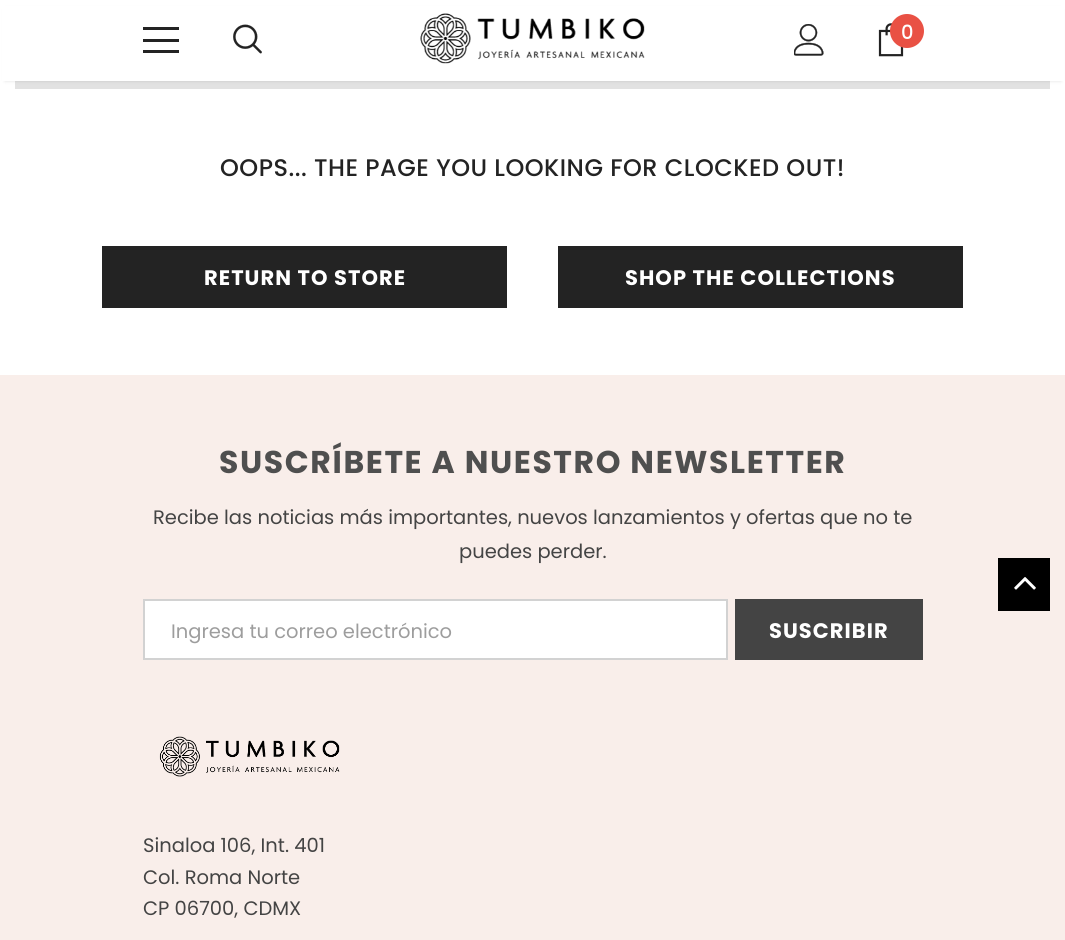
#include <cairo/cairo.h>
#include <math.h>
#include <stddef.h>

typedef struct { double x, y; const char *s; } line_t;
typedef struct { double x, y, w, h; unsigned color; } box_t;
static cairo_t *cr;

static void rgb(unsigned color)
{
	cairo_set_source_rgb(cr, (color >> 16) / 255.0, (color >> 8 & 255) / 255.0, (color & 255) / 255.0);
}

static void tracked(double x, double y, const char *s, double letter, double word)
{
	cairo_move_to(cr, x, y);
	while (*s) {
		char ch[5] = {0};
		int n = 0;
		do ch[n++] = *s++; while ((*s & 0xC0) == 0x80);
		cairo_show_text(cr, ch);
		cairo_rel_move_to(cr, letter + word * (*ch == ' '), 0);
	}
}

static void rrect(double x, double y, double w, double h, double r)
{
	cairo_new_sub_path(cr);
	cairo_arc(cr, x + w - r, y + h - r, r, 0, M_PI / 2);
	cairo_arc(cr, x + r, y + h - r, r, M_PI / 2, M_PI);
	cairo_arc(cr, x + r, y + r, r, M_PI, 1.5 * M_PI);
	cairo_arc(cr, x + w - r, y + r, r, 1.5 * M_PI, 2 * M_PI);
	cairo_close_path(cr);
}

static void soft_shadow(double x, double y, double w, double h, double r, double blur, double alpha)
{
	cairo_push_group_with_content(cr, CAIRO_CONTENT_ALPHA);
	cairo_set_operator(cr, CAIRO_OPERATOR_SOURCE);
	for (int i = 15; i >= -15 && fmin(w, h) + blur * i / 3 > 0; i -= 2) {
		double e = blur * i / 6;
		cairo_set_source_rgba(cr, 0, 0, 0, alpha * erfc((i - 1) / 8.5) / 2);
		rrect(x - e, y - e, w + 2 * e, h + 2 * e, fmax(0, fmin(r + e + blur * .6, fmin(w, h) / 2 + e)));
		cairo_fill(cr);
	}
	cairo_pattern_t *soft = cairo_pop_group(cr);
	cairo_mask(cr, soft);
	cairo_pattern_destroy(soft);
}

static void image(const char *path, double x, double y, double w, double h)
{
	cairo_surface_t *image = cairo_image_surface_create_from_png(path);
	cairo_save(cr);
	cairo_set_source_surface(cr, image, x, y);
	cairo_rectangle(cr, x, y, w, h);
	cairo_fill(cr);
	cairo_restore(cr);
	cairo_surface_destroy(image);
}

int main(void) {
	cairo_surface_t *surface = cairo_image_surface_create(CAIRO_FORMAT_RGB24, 1065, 940);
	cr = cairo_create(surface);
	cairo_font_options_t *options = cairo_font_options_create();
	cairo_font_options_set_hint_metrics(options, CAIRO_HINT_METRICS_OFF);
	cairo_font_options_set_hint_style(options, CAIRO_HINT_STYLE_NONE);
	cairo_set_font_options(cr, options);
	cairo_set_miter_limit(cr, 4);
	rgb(0xffffff);
	cairo_paint(cr);
	rgb(0xe2e2e2);
	cairo_rectangle(cr, 15, 81, 1035, 8);
	cairo_fill(cr);
	rgb(0x000000);
	soft_shadow(5, 9, 1056, 72, 0, 2, 0.12);
	{
		static const box_t items[] = {
			{2, 6, 1062, 75, 0xffffff},
			{143, 27, 36, 3, 0x232323},
			{143, 39, 36, 3, 0x232323},
			{143, 50, 36, 3, 0x232323},
		};
		for (size_t i = 0; i < sizeof items / sizeof *items; i++) {
			rgb(items[i].color);
			cairo_rectangle(cr, items[i].x, items[i].y, items[i].w, items[i].h);
			cairo_fill(cr);
		}
	}
	image("img/1.png", 233, 24, 29, 30);
	image("img/2.png", 420, 13, 225, 51);
	image("img/3.png", 794, 24, 30, 32);
	image("img/4.png", 878, 23, 26, 34);
	rgb(0xe95144);
	cairo_arc(cr, 907, 31, 17, 0, 2 * M_PI);
	cairo_fill(cr);
	{
		static const box_t items[] = {
			{102, 246, 405, 62, 0x232323},
			{558, 246, 405, 62, 0x232323},
			{0, 375, 1065, 565, 0xf9eeea},
		};
		for (size_t i = 0; i < sizeof items / sizeof *items; i++) {
			rgb(items[i].color);
			cairo_rectangle(cr, items[i].x, items[i].y, items[i].w, items[i].h);
			cairo_fill(cr);
		}
	}
	rgb(0xffffff);
	cairo_rectangle(cr, 144, 600, 583, 59);
	cairo_fill_preserve(cr);
	rgb(0xd2d2d2);
	cairo_stroke(cr);
	rgb(0x444444);
	cairo_rectangle(cr, 735, 599, 188, 61);
	cairo_fill(cr);
	image("img/5.png", 159, 736, 181, 41);
	rgb(0x000000);
	cairo_rectangle(cr, 998, 558, 52, 53);
	cairo_fill(cr);
	image("img/6.png", 1014, 577, 22, 13);
	cairo_select_font_face(cr, "Poppins Medium", CAIRO_FONT_SLANT_NORMAL, CAIRO_FONT_WEIGHT_NORMAL);
	cairo_set_font_size(cr, 19.5);
	rgb(0xffffff);
	cairo_move_to(cr, 901, 39);
	cairo_show_text(cr, "0");
	cairo_set_font_size(cr, 24);
	rgb(0x232323);
	tracked(220, 176, "OOPS... THE PAGE YOU LOOKING FOR CLOCKED OUT!", 0.5, 0);
	cairo_select_font_face(cr, "Poppins", CAIRO_FONT_SLANT_NORMAL, CAIRO_FONT_WEIGHT_BOLD);
	cairo_set_font_size(cr, 21);
	rgb(0xffffff);
	tracked(204, 285, "RETURN TO STORE", 1.05, 0);
	tracked(625, 285, "SHOP THE COLLECTIONS", 1.05, 0);
	cairo_set_font_size(cr, 31.5);
	rgb(0x4f4f4f);
	tracked(219, 473, "SUSCRÍBETE A NUESTRO NEWSLETTER", 1.6, 0);
	cairo_select_font_face(cr, "Poppins", CAIRO_FONT_SLANT_NORMAL, CAIRO_FONT_WEIGHT_NORMAL);
	cairo_set_font_size(cr, 19.5);
	rgb(0x444444);
	cairo_move_to(cr, 153, 524);
	cairo_show_text(cr, "Recibe las noticias más importantes, nuevos lanzamientos y ofertas que no te");
	cairo_move_to(cr, 459, 558);
	cairo_show_text(cr, "puedes perder.");
	rgb(0x9d9d9d);
	cairo_move_to(cr, 171, 638);
	cairo_show_text(cr, "Ingresa tu correo electrónico");
	cairo_select_font_face(cr, "Poppins", CAIRO_FONT_SLANT_NORMAL, CAIRO_FONT_WEIGHT_BOLD);
	cairo_set_font_size(cr, 21);
	rgb(0xffffff);
	tracked(769, 638, "SUSCRIBIR", 1.05, 0);
	cairo_select_font_face(cr, "Poppins", CAIRO_FONT_SLANT_NORMAL, CAIRO_FONT_WEIGHT_NORMAL);
	cairo_set_font_size(cr, 19.5);
	rgb(0x444444);
	{
		static const line_t items[] = {
			{143, 852, "Sinaloa 106, Int. 401"},
			{143, 884, "Col. Roma Norte"},
			{143, 915, "CP 06700, CDMX"},
		};
		for (size_t i = 0; i < sizeof items / sizeof *items; i++) {
			cairo_move_to(cr, items[i].x, items[i].y);
			cairo_show_text(cr, items[i].s);
		}
	}
	cairo_surface_write_to_png(surface, "page.png");
	cairo_font_options_destroy(options);
	cairo_destroy(cr);
	cairo_surface_destroy(surface);
	return 0;
}
